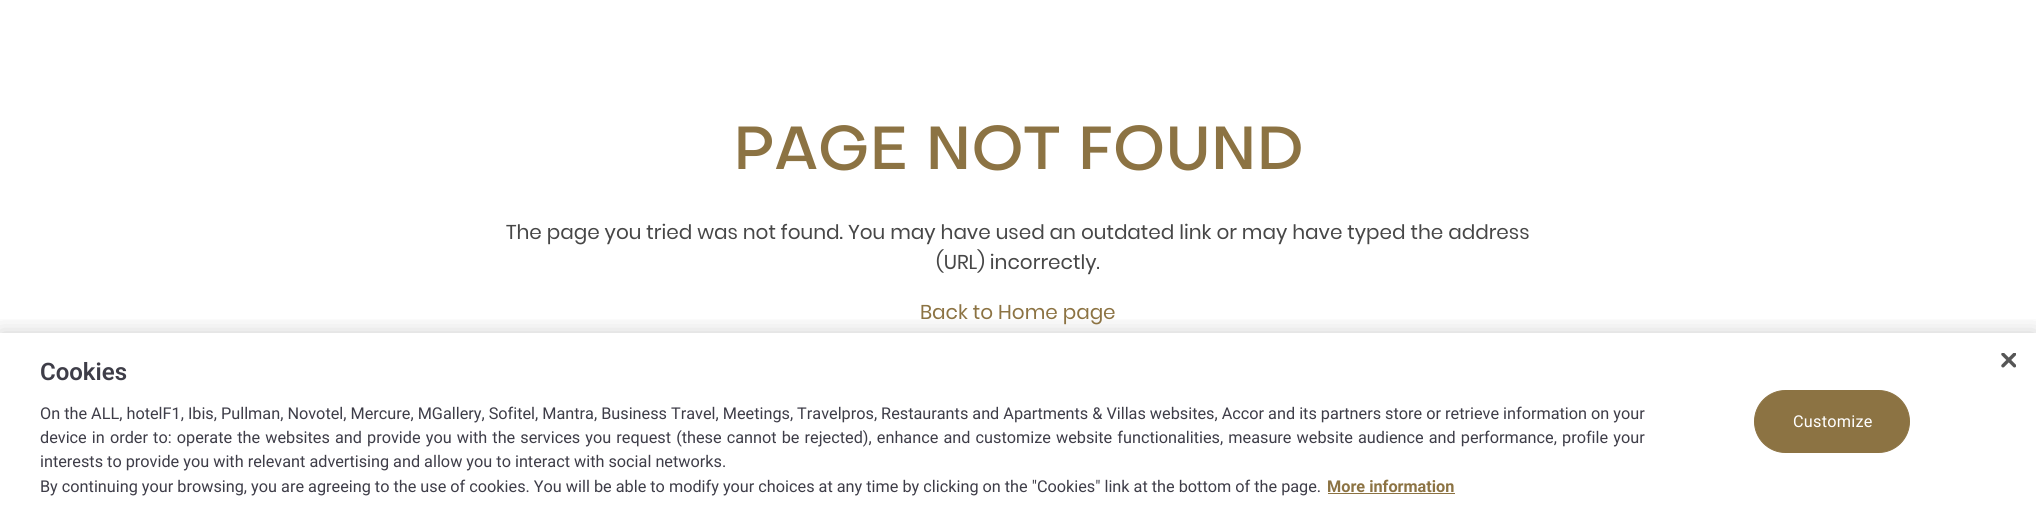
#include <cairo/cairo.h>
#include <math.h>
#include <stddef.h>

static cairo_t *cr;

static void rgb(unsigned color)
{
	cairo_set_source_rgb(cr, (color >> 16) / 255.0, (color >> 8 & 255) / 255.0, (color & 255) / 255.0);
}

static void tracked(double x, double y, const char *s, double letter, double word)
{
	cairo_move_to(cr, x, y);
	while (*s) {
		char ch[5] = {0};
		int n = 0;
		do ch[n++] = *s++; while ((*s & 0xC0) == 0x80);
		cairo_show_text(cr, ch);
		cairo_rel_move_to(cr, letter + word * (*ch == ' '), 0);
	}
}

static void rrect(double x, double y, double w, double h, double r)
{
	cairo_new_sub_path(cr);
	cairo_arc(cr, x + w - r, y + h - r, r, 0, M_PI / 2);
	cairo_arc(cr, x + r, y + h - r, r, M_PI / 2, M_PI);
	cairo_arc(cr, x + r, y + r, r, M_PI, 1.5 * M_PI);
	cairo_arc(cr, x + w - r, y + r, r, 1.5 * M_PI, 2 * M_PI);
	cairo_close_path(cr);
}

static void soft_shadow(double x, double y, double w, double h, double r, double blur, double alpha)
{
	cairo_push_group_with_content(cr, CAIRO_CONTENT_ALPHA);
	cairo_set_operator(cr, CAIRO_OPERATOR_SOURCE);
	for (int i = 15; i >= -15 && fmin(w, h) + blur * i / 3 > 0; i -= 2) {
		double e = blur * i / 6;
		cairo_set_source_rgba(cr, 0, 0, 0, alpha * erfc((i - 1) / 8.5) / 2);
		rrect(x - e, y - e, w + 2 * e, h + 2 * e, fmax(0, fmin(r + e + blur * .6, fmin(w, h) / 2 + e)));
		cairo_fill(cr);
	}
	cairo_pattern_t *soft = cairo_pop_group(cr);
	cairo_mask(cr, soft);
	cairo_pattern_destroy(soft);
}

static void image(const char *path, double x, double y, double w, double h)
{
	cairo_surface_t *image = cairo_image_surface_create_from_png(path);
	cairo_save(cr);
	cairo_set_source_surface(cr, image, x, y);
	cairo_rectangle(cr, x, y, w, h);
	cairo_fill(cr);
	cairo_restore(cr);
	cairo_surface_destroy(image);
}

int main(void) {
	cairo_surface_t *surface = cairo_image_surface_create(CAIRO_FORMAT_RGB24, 2036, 511);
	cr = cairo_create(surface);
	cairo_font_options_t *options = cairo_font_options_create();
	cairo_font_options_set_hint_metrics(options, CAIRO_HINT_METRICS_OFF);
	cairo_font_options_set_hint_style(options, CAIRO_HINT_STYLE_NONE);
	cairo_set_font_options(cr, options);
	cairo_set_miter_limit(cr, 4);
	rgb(0xffffff);
	cairo_paint(cr);
	cairo_save(cr);
	cairo_rectangle(cr, 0, 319, 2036, 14);
	cairo_clip(cr);
	rgb(0x000000);
	soft_shadow(0, 333, 2036, 178, 0, 11, 0.2);
	cairo_restore(cr);
	image("img/1.png", 2001, 353, 15, 15);
	rgb(0x8c7343);
	cairo_rectangle(cr, 1328, 493, 127, 1);
	cairo_fill(cr);
	rrect(1754.5, 390.5, 155, 62, 31);
	cairo_fill_preserve(cr);
	cairo_set_line_width(cr, 1);
	cairo_stroke(cr);
	cairo_select_font_face(cr, "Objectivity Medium", CAIRO_FONT_SLANT_NORMAL, CAIRO_FONT_WEIGHT_NORMAL);
	cairo_set_font_size(cr, 60);
	tracked(733, 169, "PAGE NOT FOUND", -0.6, 0);
	cairo_select_font_face(cr, "Poppins", CAIRO_FONT_SLANT_NORMAL, CAIRO_FONT_WEIGHT_NORMAL);
	cairo_set_font_size(cr, 20);
	rgb(0x474747);
	cairo_move_to(cr, 506, 239);
	cairo_show_text(cr, "The page you tried was not found. You may have used an outdated link or may have typed the address");
	cairo_move_to(cr, 936, 269);
	cairo_show_text(cr, "(URL) incorrectly.");
	rgb(0x8c7343);
	cairo_move_to(cr, 920, 319);
	cairo_show_text(cr, "Back to Home page");
	cairo_select_font_face(cr, "Roboto SemiBold", CAIRO_FONT_SLANT_NORMAL, CAIRO_FONT_WEIGHT_NORMAL);
	cairo_set_font_size(cr, 24);
	rgb(0x3e3d48);
	cairo_move_to(cr, 40, 380);
	cairo_show_text(cr, "Cookies");
	cairo_select_font_face(cr, "Roboto", CAIRO_FONT_SLANT_NORMAL, CAIRO_FONT_WEIGHT_NORMAL);
	cairo_set_font_size(cr, 16.25);
	cairo_move_to(cr, 40, 419);
	cairo_show_text(cr, "On the ALL, hotelF1, Ibis, Pullman, Novotel, Mercure, MGallery, Sofitel, Mantra, Business Travel, Meetings, Travelpros, Restaurants and Apartments & Villas websites, Accor and its partners store or retrieve information on your");
	tracked(40, 443, "device in order to: operate the websites and provide you with the services you request (these cannot be rejected), enhance and customize website functionalities, measure website audience and performance, profile your", 0, 1.1);
	cairo_move_to(cr, 40, 467);
	cairo_show_text(cr, "interests to provide you with relevant advertising and allow you to interact with social networks.");
	cairo_move_to(cr, 40, 492);
	cairo_show_text(cr, "By continuing your browsing, you are agreeing to the use of cookies. You will be able to modify your choices at any time by clicking on the \"Cookies\" link at the bottom of the page.");
	cairo_select_font_face(cr, "Roboto", CAIRO_FONT_SLANT_NORMAL, CAIRO_FONT_WEIGHT_BOLD);
	rgb(0x8c7343);
	cairo_move_to(cr, 1327, 492);
	cairo_show_text(cr, "More information");
	cairo_select_font_face(cr, "Roboto", CAIRO_FONT_SLANT_NORMAL, CAIRO_FONT_WEIGHT_NORMAL);
	rgb(0xffffff);
	tracked(1793, 427, "Customize", 0.25, 0);
	cairo_surface_write_to_png(surface, "page.png");
	cairo_font_options_destroy(options);
	cairo_destroy(cr);
	cairo_surface_destroy(surface);
	return 0;
}
